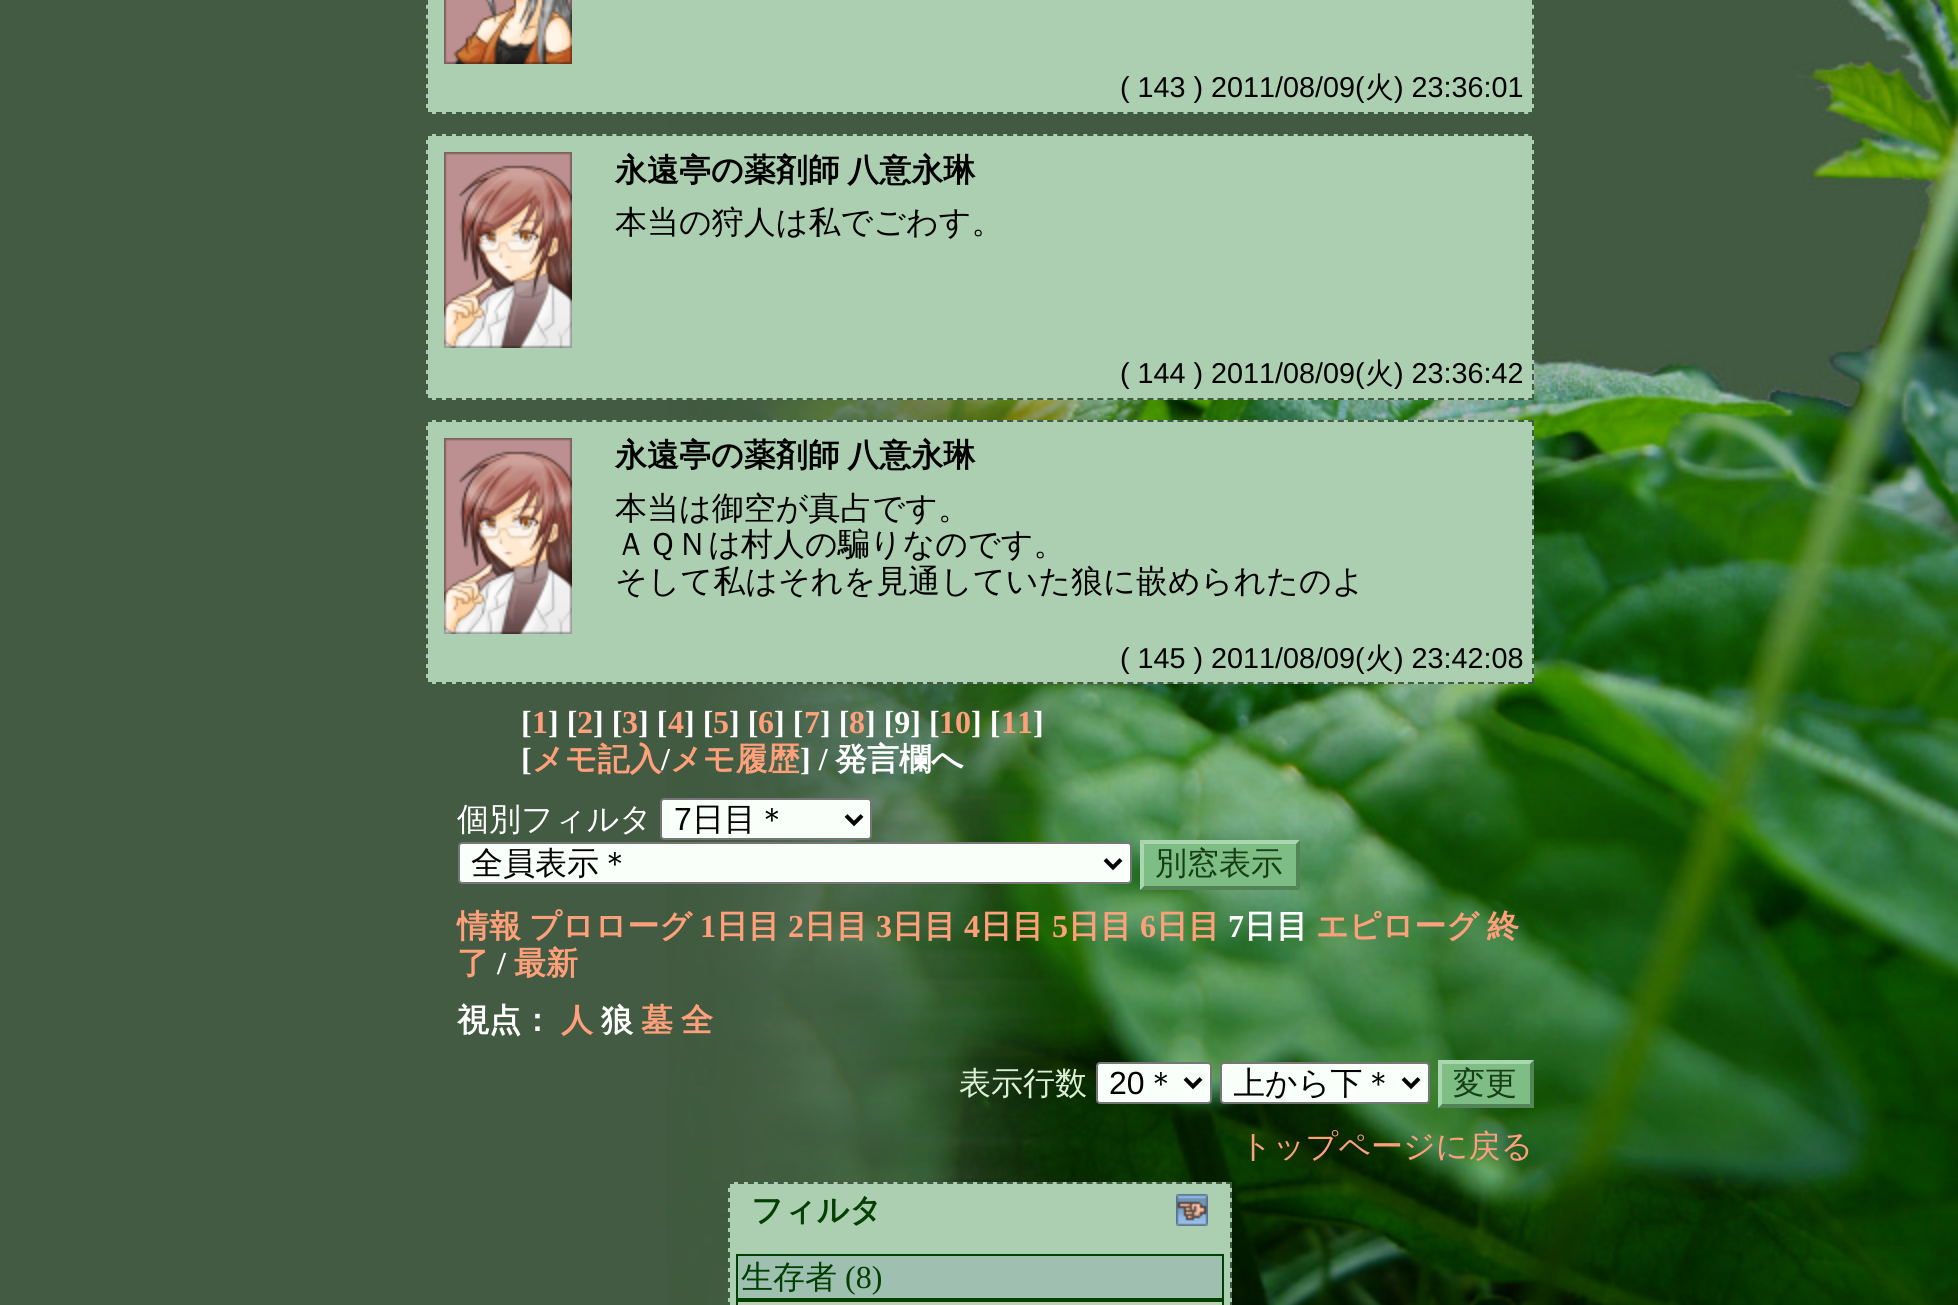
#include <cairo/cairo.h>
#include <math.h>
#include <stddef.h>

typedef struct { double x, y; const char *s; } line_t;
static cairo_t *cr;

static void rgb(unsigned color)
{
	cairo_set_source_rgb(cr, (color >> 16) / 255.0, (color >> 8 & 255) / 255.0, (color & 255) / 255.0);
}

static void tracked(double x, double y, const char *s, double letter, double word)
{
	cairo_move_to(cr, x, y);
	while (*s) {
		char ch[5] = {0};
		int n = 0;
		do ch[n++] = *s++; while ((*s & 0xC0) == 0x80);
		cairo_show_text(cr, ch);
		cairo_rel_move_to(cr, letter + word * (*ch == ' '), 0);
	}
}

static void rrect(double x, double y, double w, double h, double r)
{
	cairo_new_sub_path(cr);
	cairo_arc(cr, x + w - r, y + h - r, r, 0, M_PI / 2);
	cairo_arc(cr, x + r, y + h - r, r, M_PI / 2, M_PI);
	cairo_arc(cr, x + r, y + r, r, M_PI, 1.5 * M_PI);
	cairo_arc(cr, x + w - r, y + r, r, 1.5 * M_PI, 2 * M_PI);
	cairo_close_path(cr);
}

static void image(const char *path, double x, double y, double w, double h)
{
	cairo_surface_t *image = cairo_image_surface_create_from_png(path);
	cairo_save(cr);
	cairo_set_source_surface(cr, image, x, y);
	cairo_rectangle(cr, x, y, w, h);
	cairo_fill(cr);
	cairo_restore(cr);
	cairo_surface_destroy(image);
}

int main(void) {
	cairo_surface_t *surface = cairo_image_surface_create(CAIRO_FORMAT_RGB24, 1958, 1305);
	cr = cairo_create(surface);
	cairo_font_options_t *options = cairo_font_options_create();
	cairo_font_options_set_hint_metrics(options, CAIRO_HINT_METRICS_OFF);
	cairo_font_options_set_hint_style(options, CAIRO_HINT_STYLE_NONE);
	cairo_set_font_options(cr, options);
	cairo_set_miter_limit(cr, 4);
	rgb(0x425b42);
	cairo_paint(cr);
	image("img/1.png", 666, 0, 1292, 1305);
	rgb(0xadcfb1);
	cairo_rectangle(cr, 426, 0, 1108, 114);
	cairo_fill(cr);
	cairo_new_path(cr);
	cairo_move_to(cr, 1533, -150);
	cairo_line_to(cr, 1533, 114);
	rgb(0x425b43);
	cairo_set_dash(cr, (double[]){6, 3.92}, 2, 0);
	cairo_stroke(cr);
	cairo_new_path(cr);
	cairo_move_to(cr, 426, 113);
	cairo_line_to(cr, 1534, 113);
	cairo_set_dash(cr, (double[]){6, 4.02}, 2, 0);
	cairo_stroke(cr);
	cairo_new_path(cr);
	cairo_move_to(cr, 427, -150);
	cairo_line_to(cr, 427, 114);
	cairo_set_dash(cr, (double[]){6, 3.92}, 2, 0);
	cairo_stroke(cr);
	image("img/2.png", 444, 0, 128, 64);
	rgb(0xadcfb1);
	cairo_rectangle(cr, 426, 134, 1108, 266);
	cairo_fill(cr);
	cairo_new_path(cr);
	cairo_move_to(cr, 426, 135);
	cairo_line_to(cr, 1534, 135);
	rgb(0x425b43);
	cairo_set_dash(cr, (double[]){6, 4.02}, 2, 0);
	cairo_stroke(cr);
	cairo_new_path(cr);
	cairo_move_to(cr, 1533, 134);
	cairo_line_to(cr, 1533, 400);
	cairo_set_dash(cr, (double[]){6, 4}, 2, 0);
	cairo_stroke(cr);
	cairo_new_path(cr);
	cairo_move_to(cr, 426, 399);
	cairo_line_to(cr, 1534, 399);
	cairo_set_dash(cr, (double[]){6, 4.02}, 2, 0);
	cairo_stroke(cr);
	cairo_new_path(cr);
	cairo_move_to(cr, 427, 134);
	cairo_line_to(cr, 427, 400);
	cairo_set_dash(cr, (double[]){6, 4}, 2, 0);
	cairo_stroke(cr);
	image("img/3.png", 444, 152, 128, 196);
	rgb(0xadcfb1);
	cairo_rectangle(cr, 426, 420, 1108, 264);
	cairo_fill(cr);
	cairo_new_path(cr);
	cairo_move_to(cr, 426, 421);
	cairo_line_to(cr, 1534, 421);
	rgb(0x425b43);
	cairo_set_dash(cr, (double[]){6, 4.02}, 2, 0);
	cairo_stroke(cr);
	cairo_new_path(cr);
	cairo_move_to(cr, 1533, 420);
	cairo_line_to(cr, 1533, 684);
	cairo_set_dash(cr, (double[]){6, 3.92}, 2, 0);
	cairo_stroke(cr);
	cairo_new_path(cr);
	cairo_move_to(cr, 426, 683);
	cairo_line_to(cr, 1534, 683);
	cairo_set_dash(cr, (double[]){6, 4.02}, 2, 0);
	cairo_stroke(cr);
	cairo_new_path(cr);
	cairo_move_to(cr, 427, 420);
	cairo_line_to(cr, 427, 684);
	cairo_set_dash(cr, (double[]){6, 3.92}, 2, 0);
	cairo_stroke(cr);
	image("img/3.png", 444, 438, 128, 196);
	rgb(0xf9fff9);
	rrect(661, 799, 210, 40, 3);
	cairo_fill_preserve(cr);
	rgb(0x767676);
	cairo_set_dash(cr, NULL, 0, 0);
	cairo_stroke(cr);
	cairo_new_path(cr);
	cairo_move_to(cr, 846, 815.5);
	cairo_line_to(cr, 854, 823.5);
	cairo_line_to(cr, 862, 815.5);
	rgb(0x000000);
	cairo_set_line_width(cr, 4);
	cairo_stroke(cr);
	rgb(0xf9fff9);
	rrect(459, 843, 672, 40, 3);
	cairo_fill_preserve(cr);
	rgb(0x767676);
	cairo_set_line_width(cr, 2);
	cairo_stroke(cr);
	cairo_new_path(cr);
	cairo_move_to(cr, 1105, 859.5);
	cairo_line_to(cr, 1113, 867.5);
	cairo_line_to(cr, 1121, 859.5);
	rgb(0x000000);
	cairo_set_line_width(cr, 4);
	cairo_stroke(cr);
	rgb(0x7ebd84);
	cairo_rectangle(cr, 1140, 840, 160, 50);
	cairo_fill(cr);
	rgb(0xaad6b0);
	cairo_new_path(cr);
	cairo_move_to(cr, 1140, 840);
	cairo_line_to(cr, 1300, 840);
	cairo_line_to(cr, 1296, 844);
	cairo_line_to(cr, 1144, 844);
	cairo_close_path(cr);
	cairo_fill(cr);
	rgb(0x528458);
	cairo_new_path(cr);
	cairo_move_to(cr, 1300, 840);
	cairo_line_to(cr, 1300, 890);
	cairo_line_to(cr, 1296, 886);
	cairo_line_to(cr, 1296, 844);
	cairo_close_path(cr);
	cairo_fill(cr);
	cairo_new_path(cr);
	cairo_move_to(cr, 1300, 890);
	cairo_line_to(cr, 1140, 890);
	cairo_line_to(cr, 1144, 886);
	cairo_line_to(cr, 1296, 886);
	cairo_close_path(cr);
	cairo_fill(cr);
	rgb(0xaad6b0);
	cairo_new_path(cr);
	cairo_move_to(cr, 1140, 890);
	cairo_line_to(cr, 1140, 840);
	cairo_line_to(cr, 1144, 844);
	cairo_line_to(cr, 1144, 886);
	cairo_close_path(cr);
	cairo_fill(cr);
	rgb(0xf9fff9);
	rrect(1097, 1063, 114, 40, 3);
	cairo_fill_preserve(cr);
	rgb(0x767676);
	cairo_set_line_width(cr, 2);
	cairo_stroke(cr);
	cairo_new_path(cr);
	cairo_move_to(cr, 1185, 1078.5);
	cairo_line_to(cr, 1193, 1086.5);
	cairo_line_to(cr, 1201, 1078.5);
	rgb(0x000000);
	cairo_set_line_width(cr, 4);
	cairo_stroke(cr);
	rgb(0xf9fff9);
	rrect(1221, 1063, 208, 40, 3);
	cairo_fill_preserve(cr);
	rgb(0x767676);
	cairo_set_line_width(cr, 2);
	cairo_stroke(cr);
	cairo_new_path(cr);
	cairo_move_to(cr, 1403, 1078.5);
	cairo_line_to(cr, 1411, 1086.5);
	cairo_line_to(cr, 1419, 1078.5);
	rgb(0x000000);
	cairo_set_line_width(cr, 4);
	cairo_stroke(cr);
	rgb(0x7ebd84);
	cairo_rectangle(cr, 1438, 1060, 96, 48);
	cairo_fill(cr);
	rgb(0xaad6b0);
	cairo_new_path(cr);
	cairo_move_to(cr, 1438, 1060);
	cairo_line_to(cr, 1534, 1060);
	cairo_line_to(cr, 1530, 1064);
	cairo_line_to(cr, 1442, 1064);
	cairo_close_path(cr);
	cairo_fill(cr);
	rgb(0x528458);
	cairo_new_path(cr);
	cairo_move_to(cr, 1534, 1060);
	cairo_line_to(cr, 1534, 1108);
	cairo_line_to(cr, 1530, 1104);
	cairo_line_to(cr, 1530, 1064);
	cairo_close_path(cr);
	cairo_fill(cr);
	cairo_new_path(cr);
	cairo_move_to(cr, 1534, 1108);
	cairo_line_to(cr, 1438, 1108);
	cairo_line_to(cr, 1442, 1104);
	cairo_line_to(cr, 1530, 1104);
	cairo_close_path(cr);
	cairo_fill(cr);
	rgb(0xaad6b0);
	cairo_new_path(cr);
	cairo_move_to(cr, 1438, 1108);
	cairo_line_to(cr, 1438, 1060);
	cairo_line_to(cr, 1442, 1064);
	cairo_line_to(cr, 1442, 1104);
	cairo_close_path(cr);
	cairo_fill(cr);
	rgb(0xadcfb1);
	cairo_rectangle(cr, 728, 1182, 504, 123);
	cairo_fill(cr);
	cairo_new_path(cr);
	cairo_move_to(cr, 728, 1183);
	cairo_line_to(cr, 1232, 1183);
	rgb(0x425b43);
	cairo_set_line_width(cr, 2);
	cairo_set_dash(cr, (double[]){6, 3.96}, 2, 0);
	cairo_stroke(cr);
	cairo_new_path(cr);
	cairo_move_to(cr, 1231, 1182);
	cairo_line_to(cr, 1231, 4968);
	cairo_set_dash(cr, (double[]){6, 4}, 2, 0);
	cairo_stroke(cr);
	cairo_new_path(cr);
	cairo_move_to(cr, 729, 1182);
	cairo_line_to(cr, 729, 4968);
	cairo_stroke(cr);
	image("img/4.png", 1176, 1194, 32, 32);
	rgb(0x9fbfb1);
	cairo_rectangle(cr, 737, 1255, 486, 44);
	cairo_fill_preserve(cr);
	rgb(0x004000);
	cairo_set_dash(cr, NULL, 0, 0);
	cairo_stroke(cr);
	cairo_rectangle(cr, 737, 1301, 486, 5);
	cairo_stroke(cr);
	rgb(0xbfcfb1);
	cairo_rectangle(cr, 738, 1302, 484, 3);
	cairo_fill(cr);
	cairo_select_font_face(cr, "Liberation Sans", CAIRO_FONT_SLANT_NORMAL, CAIRO_FONT_WEIGHT_NORMAL);
	cairo_set_font_size(cr, 28.75);
	rgb(0x000000);
	cairo_move_to(cr, 1120, 97);
	cairo_show_text(cr, "( 143 ) 2011/08/09(");
	cairo_select_font_face(cr, "WenQuanYi Zen Hei Medium", CAIRO_FONT_SLANT_NORMAL, CAIRO_FONT_WEIGHT_NORMAL);
	cairo_move_to(cr, 1365, 97);
	cairo_show_text(cr, "火");
	cairo_select_font_face(cr, "Liberation Sans", CAIRO_FONT_SLANT_NORMAL, CAIRO_FONT_WEIGHT_NORMAL);
	cairo_move_to(cr, 1394, 97);
	cairo_show_text(cr, ") 23:36:01");
	cairo_select_font_face(cr, "WenQuanYi Zen Hei", CAIRO_FONT_SLANT_NORMAL, CAIRO_FONT_WEIGHT_BOLD);
	cairo_set_font_size(cr, 32);
	tracked(615, 181, "永遠亭の薬剤師 八意永琳", 0, -2);
	cairo_select_font_face(cr, "WenQuanYi Zen Hei Medium", CAIRO_FONT_SLANT_NORMAL, CAIRO_FONT_WEIGHT_NORMAL);
	cairo_move_to(cr, 615, 233);
	cairo_show_text(cr, "本当の狩人は私でごわす。");
	cairo_select_font_face(cr, "Liberation Sans", CAIRO_FONT_SLANT_NORMAL, CAIRO_FONT_WEIGHT_NORMAL);
	cairo_set_font_size(cr, 28.75);
	cairo_move_to(cr, 1120, 383);
	cairo_show_text(cr, "( 144 ) 2011/08/09(");
	cairo_select_font_face(cr, "WenQuanYi Zen Hei Medium", CAIRO_FONT_SLANT_NORMAL, CAIRO_FONT_WEIGHT_NORMAL);
	cairo_move_to(cr, 1365, 383);
	cairo_show_text(cr, "火");
	cairo_select_font_face(cr, "Liberation Sans", CAIRO_FONT_SLANT_NORMAL, CAIRO_FONT_WEIGHT_NORMAL);
	cairo_move_to(cr, 1394, 383);
	cairo_show_text(cr, ") 23:36:42");
	cairo_select_font_face(cr, "WenQuanYi Zen Hei", CAIRO_FONT_SLANT_NORMAL, CAIRO_FONT_WEIGHT_BOLD);
	cairo_set_font_size(cr, 32);
	tracked(615, 466, "永遠亭の薬剤師 八意永琳", 0, -2);
	cairo_select_font_face(cr, "WenQuanYi Zen Hei Medium", CAIRO_FONT_SLANT_NORMAL, CAIRO_FONT_WEIGHT_NORMAL);
	{
		static const line_t items[] = {
			{615, 519, "本当は御空が真占です。"},
			{615, 555, "ＡＱＮは村人の騙りなのです。"},
			{615, 592, "そして私はそれを見通していた狼に嵌められたのよ"},
		};
		for (size_t i = 0; i < sizeof items / sizeof *items; i++) {
			cairo_move_to(cr, items[i].x, items[i].y);
			cairo_show_text(cr, items[i].s);
		}
	}
	cairo_select_font_face(cr, "Liberation Sans", CAIRO_FONT_SLANT_NORMAL, CAIRO_FONT_WEIGHT_NORMAL);
	cairo_set_font_size(cr, 28.75);
	cairo_move_to(cr, 1120, 668);
	cairo_show_text(cr, "( 145 ) 2011/08/09(");
	cairo_select_font_face(cr, "WenQuanYi Zen Hei Medium", CAIRO_FONT_SLANT_NORMAL, CAIRO_FONT_WEIGHT_NORMAL);
	cairo_move_to(cr, 1365, 668);
	cairo_show_text(cr, "火");
	cairo_select_font_face(cr, "Liberation Sans", CAIRO_FONT_SLANT_NORMAL, CAIRO_FONT_WEIGHT_NORMAL);
	cairo_move_to(cr, 1394, 668);
	cairo_show_text(cr, ") 23:42:08");
	cairo_select_font_face(cr, "Liberation Serif", CAIRO_FONT_SLANT_NORMAL, CAIRO_FONT_WEIGHT_BOLD);
	cairo_set_font_size(cr, 32);
	rgb(0xffffff);
	cairo_move_to(cr, 521, 733);
	cairo_show_text(cr, "[");
	rgb(0xffa07a);
	cairo_move_to(cr, 532, 733);
	cairo_show_text(cr, "1");
	rgb(0xffffff);
	cairo_move_to(cr, 548, 733);
	cairo_show_text(cr, "] [");
	rgb(0xffa07a);
	cairo_move_to(cr, 577, 733);
	cairo_show_text(cr, "2");
	rgb(0xffffff);
	cairo_move_to(cr, 593, 733);
	cairo_show_text(cr, "] [");
	rgb(0xffa07a);
	cairo_move_to(cr, 622, 733);
	cairo_show_text(cr, "3");
	rgb(0xffffff);
	cairo_move_to(cr, 638, 733);
	cairo_show_text(cr, "] [");
	rgb(0xffa07a);
	cairo_move_to(cr, 668, 733);
	cairo_show_text(cr, "4");
	rgb(0xffffff);
	cairo_move_to(cr, 684, 733);
	cairo_show_text(cr, "] [");
	rgb(0xffa07a);
	cairo_move_to(cr, 713, 733);
	cairo_show_text(cr, "5");
	rgb(0xffffff);
	cairo_move_to(cr, 729, 733);
	cairo_show_text(cr, "] [");
	rgb(0xffa07a);
	cairo_move_to(cr, 758, 733);
	cairo_show_text(cr, "6");
	rgb(0xffffff);
	cairo_move_to(cr, 774, 733);
	cairo_show_text(cr, "] [");
	rgb(0xffa07a);
	cairo_move_to(cr, 804, 733);
	cairo_show_text(cr, "7");
	rgb(0xffffff);
	cairo_move_to(cr, 820, 733);
	cairo_show_text(cr, "] [");
	rgb(0xffa07a);
	cairo_move_to(cr, 849, 733);
	cairo_show_text(cr, "8");
	rgb(0xffffff);
	cairo_move_to(cr, 865, 733);
	cairo_show_text(cr, "] [9] [");
	rgb(0xffa07a);
	cairo_move_to(cr, 939, 733);
	cairo_show_text(cr, "10");
	rgb(0xffffff);
	cairo_move_to(cr, 971, 733);
	cairo_show_text(cr, "] [");
	rgb(0xffa07a);
	cairo_move_to(cr, 1001, 733);
	cairo_show_text(cr, "11");
	rgb(0xffffff);
	cairo_move_to(cr, 1033, 733);
	cairo_show_text(cr, "]");
	cairo_move_to(cr, 521, 770);
	cairo_show_text(cr, "[");
	cairo_select_font_face(cr, "WenQuanYi Zen Hei", CAIRO_FONT_SLANT_NORMAL, CAIRO_FONT_WEIGHT_BOLD);
	rgb(0xffa07a);
	cairo_move_to(cr, 532, 770);
	cairo_show_text(cr, "メモ記入");
	cairo_select_font_face(cr, "Liberation Serif", CAIRO_FONT_SLANT_NORMAL, CAIRO_FONT_WEIGHT_BOLD);
	rgb(0xffffff);
	cairo_move_to(cr, 661, 770);
	cairo_show_text(cr, "/");
	cairo_select_font_face(cr, "WenQuanYi Zen Hei", CAIRO_FONT_SLANT_NORMAL, CAIRO_FONT_WEIGHT_BOLD);
	rgb(0xffa07a);
	cairo_move_to(cr, 670, 770);
	cairo_show_text(cr, "メモ履歴");
	cairo_select_font_face(cr, "Liberation Serif", CAIRO_FONT_SLANT_NORMAL, CAIRO_FONT_WEIGHT_BOLD);
	rgb(0xffffff);
	cairo_move_to(cr, 800, 770);
	cairo_show_text(cr, "] /");
	cairo_select_font_face(cr, "WenQuanYi Zen Hei", CAIRO_FONT_SLANT_NORMAL, CAIRO_FONT_WEIGHT_BOLD);
	cairo_move_to(cr, 835, 770);
	cairo_show_text(cr, "発言欄へ");
	cairo_select_font_face(cr, "WenQuanYi Zen Hei Medium", CAIRO_FONT_SLANT_NORMAL, CAIRO_FONT_WEIGHT_NORMAL);
	cairo_move_to(cr, 457, 830);
	cairo_show_text(cr, "個別フィルタ");
	cairo_select_font_face(cr, "Liberation Sans", CAIRO_FONT_SLANT_NORMAL, CAIRO_FONT_WEIGHT_NORMAL);
	rgb(0x000000);
	cairo_move_to(cr, 674, 830);
	cairo_show_text(cr, "7");
	cairo_select_font_face(cr, "WenQuanYi Zen Hei Medium", CAIRO_FONT_SLANT_NORMAL, CAIRO_FONT_WEIGHT_NORMAL);
	cairo_move_to(cr, 692, 830);
	cairo_show_text(cr, "日目＊");
	cairo_move_to(cr, 471, 874);
	cairo_show_text(cr, "全員表示＊");
	rgb(0x163f16);
	cairo_move_to(cr, 1155, 874);
	cairo_show_text(cr, "別窓表示");
	cairo_select_font_face(cr, "WenQuanYi Zen Hei", CAIRO_FONT_SLANT_NORMAL, CAIRO_FONT_WEIGHT_BOLD);
	rgb(0xffa07a);
	cairo_move_to(cr, 457, 937);
	cairo_show_text(cr, "情報");
	cairo_move_to(cr, 529, 937);
	cairo_show_text(cr, "プロローグ");
	cairo_select_font_face(cr, "Liberation Serif", CAIRO_FONT_SLANT_NORMAL, CAIRO_FONT_WEIGHT_BOLD);
	cairo_move_to(cr, 700, 937);
	cairo_show_text(cr, "1");
	cairo_select_font_face(cr, "WenQuanYi Zen Hei", CAIRO_FONT_SLANT_NORMAL, CAIRO_FONT_WEIGHT_BOLD);
	cairo_move_to(cr, 716, 937);
	cairo_show_text(cr, "日目");
	cairo_select_font_face(cr, "Liberation Serif", CAIRO_FONT_SLANT_NORMAL, CAIRO_FONT_WEIGHT_BOLD);
	cairo_move_to(cr, 788, 937);
	cairo_show_text(cr, "2");
	cairo_select_font_face(cr, "WenQuanYi Zen Hei", CAIRO_FONT_SLANT_NORMAL, CAIRO_FONT_WEIGHT_BOLD);
	cairo_move_to(cr, 804, 937);
	cairo_show_text(cr, "日目");
	cairo_select_font_face(cr, "Liberation Serif", CAIRO_FONT_SLANT_NORMAL, CAIRO_FONT_WEIGHT_BOLD);
	cairo_move_to(cr, 876, 937);
	cairo_show_text(cr, "3");
	cairo_select_font_face(cr, "WenQuanYi Zen Hei", CAIRO_FONT_SLANT_NORMAL, CAIRO_FONT_WEIGHT_BOLD);
	cairo_move_to(cr, 892, 937);
	cairo_show_text(cr, "日目");
	cairo_select_font_face(cr, "Liberation Serif", CAIRO_FONT_SLANT_NORMAL, CAIRO_FONT_WEIGHT_BOLD);
	cairo_move_to(cr, 964, 937);
	cairo_show_text(cr, "4");
	cairo_select_font_face(cr, "WenQuanYi Zen Hei", CAIRO_FONT_SLANT_NORMAL, CAIRO_FONT_WEIGHT_BOLD);
	cairo_move_to(cr, 980, 937);
	cairo_show_text(cr, "日目");
	cairo_select_font_face(cr, "Liberation Serif", CAIRO_FONT_SLANT_NORMAL, CAIRO_FONT_WEIGHT_BOLD);
	cairo_move_to(cr, 1052, 937);
	cairo_show_text(cr, "5");
	cairo_select_font_face(cr, "WenQuanYi Zen Hei", CAIRO_FONT_SLANT_NORMAL, CAIRO_FONT_WEIGHT_BOLD);
	cairo_move_to(cr, 1068, 937);
	cairo_show_text(cr, "日目");
	cairo_select_font_face(cr, "Liberation Serif", CAIRO_FONT_SLANT_NORMAL, CAIRO_FONT_WEIGHT_BOLD);
	cairo_move_to(cr, 1140, 937);
	cairo_show_text(cr, "6");
	cairo_select_font_face(cr, "WenQuanYi Zen Hei", CAIRO_FONT_SLANT_NORMAL, CAIRO_FONT_WEIGHT_BOLD);
	cairo_move_to(cr, 1156, 937);
	cairo_show_text(cr, "日目");
	cairo_select_font_face(cr, "Liberation Serif", CAIRO_FONT_SLANT_NORMAL, CAIRO_FONT_WEIGHT_BOLD);
	rgb(0xffffff);
	cairo_move_to(cr, 1228, 937);
	cairo_show_text(cr, "7");
	cairo_select_font_face(cr, "WenQuanYi Zen Hei", CAIRO_FONT_SLANT_NORMAL, CAIRO_FONT_WEIGHT_BOLD);
	cairo_move_to(cr, 1244, 937);
	cairo_show_text(cr, "日目");
	rgb(0xffa07a);
	{
		static const line_t items[] = {
			{1316, 937, "エピローグ"},
			{1487, 937, "終"},
			{457, 974, "了"},
		};
		for (size_t i = 0; i < sizeof items / sizeof *items; i++) {
			cairo_move_to(cr, items[i].x, items[i].y);
			cairo_show_text(cr, items[i].s);
		}
	}
	cairo_select_font_face(cr, "Liberation Serif", CAIRO_FONT_SLANT_NORMAL, CAIRO_FONT_WEIGHT_BOLD);
	rgb(0xffffff);
	cairo_move_to(cr, 497, 974);
	cairo_show_text(cr, "/");
	cairo_select_font_face(cr, "WenQuanYi Zen Hei", CAIRO_FONT_SLANT_NORMAL, CAIRO_FONT_WEIGHT_BOLD);
	rgb(0xffa07a);
	cairo_move_to(cr, 514, 974);
	cairo_show_text(cr, "最新");
	rgb(0xffffff);
	cairo_move_to(cr, 457, 1031);
	cairo_show_text(cr, "視点：");
	rgb(0xffa07a);
	cairo_move_to(cr, 561, 1031);
	cairo_show_text(cr, "人");
	rgb(0xffffff);
	cairo_move_to(cr, 601, 1031);
	cairo_show_text(cr, "狼");
	rgb(0xffa07a);
	cairo_move_to(cr, 641, 1031);
	cairo_show_text(cr, "墓");
	cairo_move_to(cr, 681, 1031);
	cairo_show_text(cr, "全");
	cairo_select_font_face(cr, "WenQuanYi Zen Hei Medium", CAIRO_FONT_SLANT_NORMAL, CAIRO_FONT_WEIGHT_NORMAL);
	rgb(0xddf0d6);
	cairo_move_to(cr, 959, 1094);
	cairo_show_text(cr, "表示行数");
	cairo_select_font_face(cr, "Liberation Sans", CAIRO_FONT_SLANT_NORMAL, CAIRO_FONT_WEIGHT_NORMAL);
	rgb(0x000000);
	cairo_move_to(cr, 1109, 1094);
	cairo_show_text(cr, "20");
	cairo_select_font_face(cr, "WenQuanYi Zen Hei Medium", CAIRO_FONT_SLANT_NORMAL, CAIRO_FONT_WEIGHT_NORMAL);
	cairo_move_to(cr, 1145, 1094);
	cairo_show_text(cr, "＊");
	cairo_save(cr);
	cairo_rectangle(cr, 1234, 1064, 162, 38);
	cairo_clip(cr);
	cairo_move_to(cr, 1233, 1094);
	cairo_show_text(cr, "上から下＊");
	cairo_restore(cr);
	rgb(0x163f16);
	cairo_move_to(cr, 1453, 1094);
	cairo_show_text(cr, "変更");
	rgb(0xffa07a);
	cairo_move_to(cr, 1240, 1157);
	cairo_show_text(cr, "トップページに戻る");
	cairo_select_font_face(cr, "WenQuanYi Zen Hei", CAIRO_FONT_SLANT_NORMAL, CAIRO_FONT_WEIGHT_BOLD);
	rgb(0x004000);
	cairo_move_to(cr, 751, 1221);
	cairo_show_text(cr, "フィルタ");
	cairo_select_font_face(cr, "WenQuanYi Zen Hei Medium", CAIRO_FONT_SLANT_NORMAL, CAIRO_FONT_WEIGHT_NORMAL);
	cairo_move_to(cr, 741, 1288);
	cairo_show_text(cr, "生存者");
	cairo_select_font_face(cr, "Liberation Serif", CAIRO_FONT_SLANT_NORMAL, CAIRO_FONT_WEIGHT_NORMAL);
	cairo_move_to(cr, 845, 1288);
	cairo_show_text(cr, "(8)");
	cairo_surface_write_to_png(surface, "page.png");
	cairo_font_options_destroy(options);
	cairo_destroy(cr);
	cairo_surface_destroy(surface);
	return 0;
}
